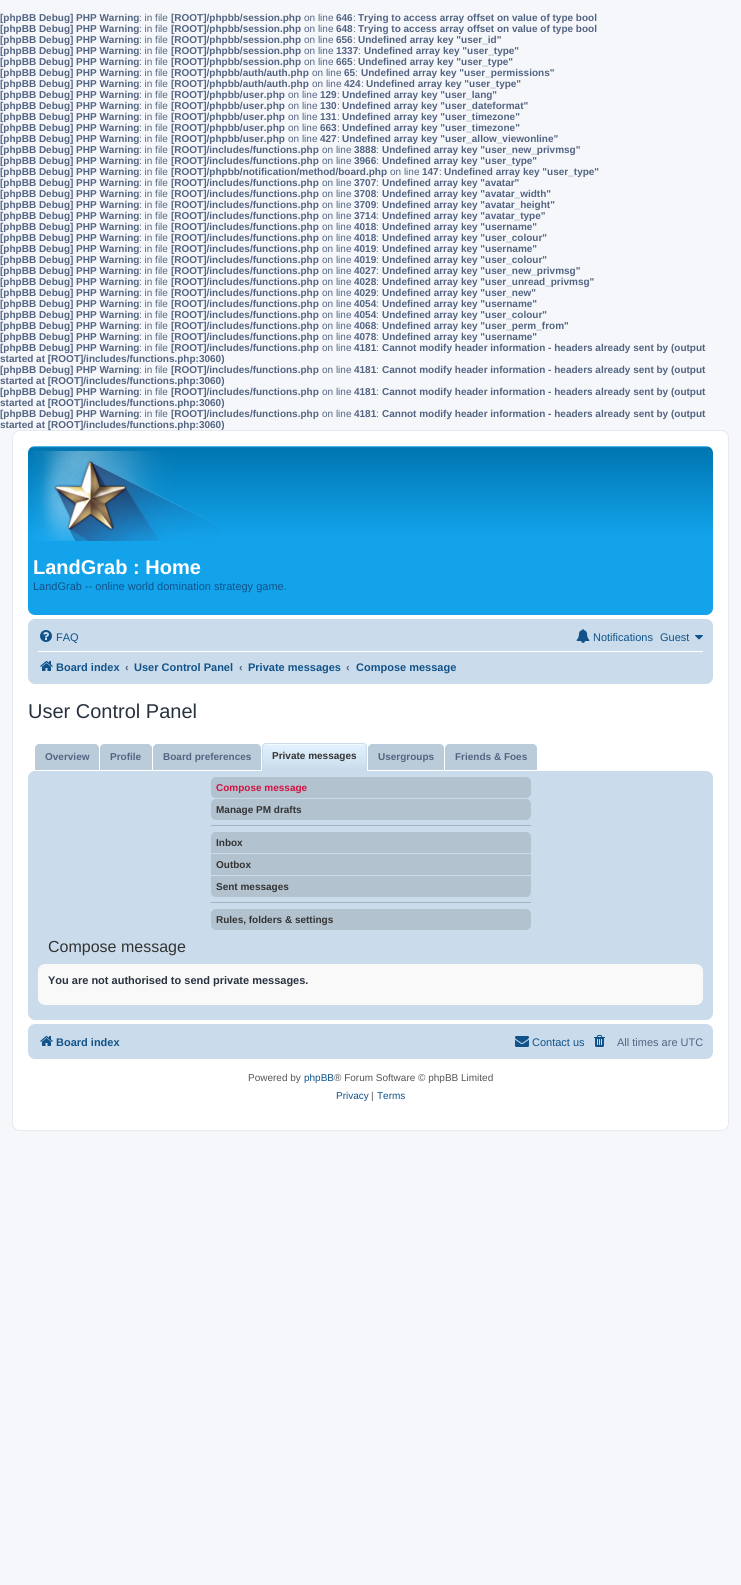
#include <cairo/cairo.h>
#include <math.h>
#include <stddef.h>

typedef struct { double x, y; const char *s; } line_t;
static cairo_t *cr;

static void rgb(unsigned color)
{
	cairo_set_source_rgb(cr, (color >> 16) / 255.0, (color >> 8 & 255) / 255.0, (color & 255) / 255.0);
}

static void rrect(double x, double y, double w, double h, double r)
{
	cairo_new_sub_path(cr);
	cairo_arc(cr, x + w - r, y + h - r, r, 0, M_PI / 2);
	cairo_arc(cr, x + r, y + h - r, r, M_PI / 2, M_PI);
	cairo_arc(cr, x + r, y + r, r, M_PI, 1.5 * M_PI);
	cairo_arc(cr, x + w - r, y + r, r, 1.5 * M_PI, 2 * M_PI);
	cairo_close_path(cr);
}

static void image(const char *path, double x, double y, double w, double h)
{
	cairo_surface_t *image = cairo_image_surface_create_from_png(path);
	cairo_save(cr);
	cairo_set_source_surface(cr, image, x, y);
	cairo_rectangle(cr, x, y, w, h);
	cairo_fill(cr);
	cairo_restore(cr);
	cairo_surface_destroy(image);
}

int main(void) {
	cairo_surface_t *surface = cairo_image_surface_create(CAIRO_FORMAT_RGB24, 741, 1585);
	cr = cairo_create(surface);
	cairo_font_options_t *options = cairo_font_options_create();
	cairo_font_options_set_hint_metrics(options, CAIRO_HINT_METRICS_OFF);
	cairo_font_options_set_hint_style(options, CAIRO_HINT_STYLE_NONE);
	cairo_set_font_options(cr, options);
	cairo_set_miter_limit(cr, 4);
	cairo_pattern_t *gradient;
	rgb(0xf5f7fa);
	cairo_paint(cr);
	rgb(0xffffff);
	rrect(12.5, 430.5, 716, 700, 7.5);
	cairo_fill_preserve(cr);
	rgb(0xe6e9ed);
	cairo_set_line_width(cr, 1);
	cairo_stroke(cr);
	gradient = cairo_pattern_create_linear(371, 446, 371, 615);
	cairo_pattern_add_color_stop_rgba(gradient, 0, 0.416, 0.808, 1, 1);
	cairo_pattern_add_color_stop_rgba(gradient, 0.01, 0, 0.463, 0.694, 1);
	cairo_pattern_add_color_stop_rgba(gradient, 0.54, 0.071, 0.639, 0.922, 1);
	cairo_pattern_add_color_stop_rgba(gradient, 1, 0.071, 0.639, 0.922, 1);
	cairo_set_source(cr, gradient);
	cairo_pattern_destroy(gradient);
	rrect(28, 446, 685, 169, 7);
	cairo_fill(cr);
	image("img/1.png", 33, 451, 187, 90);
	rgb(0xcadceb);
	rrect(28, 619, 685, 65, 7);
	cairo_fill(cr);
	image("img/2.png", 40, 630, 12, 12);
	image("img/3.png", 576, 629, 14, 14);
	image("img/4.png", 695, 635, 8, 5);
	rgb(0xffffff);
	cairo_rectangle(cr, 38, 651, 665, 1);
	cairo_fill(cr);
	image("img/5.png", 40, 661, 13, 10);
	rgb(0xbaccd9);
	cairo_new_path(cr);
	cairo_move_to(cr, 39, 744);
	cairo_line_to(cr, 95, 744);
	cairo_curve_to(cr, 97, 744, 99, 746, 99, 748);
	cairo_line_to(cr, 99, 770);
	cairo_line_to(cr, 35, 770);
	cairo_line_to(cr, 35, 748);
	cairo_curve_to(cr, 35, 746, 37, 744, 39, 744);
	cairo_close_path(cr);
	cairo_fill(cr);
	cairo_new_path(cr);
	cairo_move_to(cr, 104, 744);
	cairo_line_to(cr, 148, 744);
	cairo_curve_to(cr, 150, 744, 152, 746, 152, 748);
	cairo_line_to(cr, 152, 770);
	cairo_line_to(cr, 100, 770);
	cairo_line_to(cr, 100, 748);
	cairo_curve_to(cr, 100, 746, 102, 744, 104, 744);
	cairo_close_path(cr);
	cairo_fill(cr);
	cairo_new_path(cr);
	cairo_move_to(cr, 157, 744);
	cairo_line_to(cr, 257, 744);
	cairo_curve_to(cr, 259, 744, 261, 746, 261, 748);
	cairo_line_to(cr, 261, 770);
	cairo_line_to(cr, 153, 770);
	cairo_line_to(cr, 153, 748);
	cairo_curve_to(cr, 153, 746, 155, 744, 157, 744);
	cairo_close_path(cr);
	cairo_fill(cr);
	cairo_save(cr);
	cairo_new_path(cr);
	cairo_move_to(cr, 266, 743);
	cairo_line_to(cr, 363, 743);
	cairo_curve_to(cr, 365, 743, 367, 745, 367, 747);
	cairo_line_to(cr, 367, 771);
	cairo_line_to(cr, 262, 771);
	cairo_line_to(cr, 262, 747);
	cairo_curve_to(cr, 262, 745, 264, 743, 266, 743);
	cairo_close_path(cr);
	cairo_clip(cr);
	gradient = cairo_pattern_create_linear(315, 744, 315, 770);
	cairo_pattern_add_color_stop_rgba(gradient, 0, 0.886, 0.949, 1, 1);
	cairo_pattern_add_color_stop_rgba(gradient, 1, 0.792, 0.863, 0.922, 1);
	cairo_set_source(cr, gradient);
	cairo_pattern_destroy(gradient);
	cairo_rectangle(cr, 262, 744, 105, 26);
	cairo_fill(cr);
	cairo_restore(cr);
	rgb(0xf2f9ff);
	cairo_new_path(cr);
	cairo_move_to(cr, 266, 745);
	cairo_line_to(cr, 363, 745);
	cairo_curve_to(cr, 365, 745, 366, 746, 366, 748);
	cairo_curve_to(cr, 366, 740, 350, 744, 347, 744);
	cairo_line_to(cr, 282, 744);
	cairo_curve_to(cr, 279, 744, 263, 740, 263, 748);
	cairo_curve_to(cr, 263, 746, 264, 745, 266, 745);
	cairo_close_path(cr);
	cairo_fill(cr);
	cairo_new_path(cr);
	cairo_move_to(cr, 266, 743.5);
	cairo_line_to(cr, 363, 743.5);
	cairo_curve_to(cr, 365, 743.5, 366.5, 745, 366.5, 747);
	cairo_line_to(cr, 366.5, 770.5);
	cairo_line_to(cr, 262.5, 770.5);
	cairo_line_to(cr, 262.5, 747);
	cairo_curve_to(cr, 262.5, 745, 264, 743.5, 266, 743.5);
	cairo_close_path(cr);
	rgb(0xcadceb);
	cairo_stroke(cr);
	rgb(0xbaccd9);
	cairo_new_path(cr);
	cairo_move_to(cr, 372, 744);
	cairo_line_to(cr, 440, 744);
	cairo_curve_to(cr, 442, 744, 444, 746, 444, 748);
	cairo_line_to(cr, 444, 770);
	cairo_line_to(cr, 368, 770);
	cairo_line_to(cr, 368, 748);
	cairo_curve_to(cr, 368, 746, 370, 744, 372, 744);
	cairo_close_path(cr);
	cairo_fill(cr);
	cairo_new_path(cr);
	cairo_move_to(cr, 449, 744);
	cairo_line_to(cr, 533, 744);
	cairo_curve_to(cr, 535, 744, 537, 746, 537, 748);
	cairo_line_to(cr, 537, 770);
	cairo_line_to(cr, 445, 770);
	cairo_line_to(cr, 445, 748);
	cairo_curve_to(cr, 445, 746, 447, 744, 449, 744);
	cairo_close_path(cr);
	cairo_fill(cr);
	rgb(0xcadceb);
	rrect(28, 771, 685, 249, 7);
	cairo_fill(cr);
	rgb(0xb2c2cf);
	rrect(211, 777, 320, 21, 5);
	cairo_fill(cr);
	rrect(211, 799, 320, 21, 5);
	cairo_fill(cr);
	rgb(0xa4b3bf);
	cairo_rectangle(cr, 211, 825, 320, 1);
	cairo_fill(cr);
	rgb(0xb2c2cf);
	cairo_new_path(cr);
	cairo_move_to(cr, 216, 832);
	cairo_line_to(cr, 526, 832);
	cairo_curve_to(cr, 529, 832, 531, 834, 531, 837);
	cairo_line_to(cr, 531, 853);
	cairo_line_to(cr, 211, 853);
	cairo_line_to(cr, 211, 837);
	cairo_curve_to(cr, 211, 834, 213, 832, 216, 832);
	cairo_close_path(cr);
	cairo_fill(cr);
	cairo_rectangle(cr, 211, 854, 320, 21);
	cairo_fill(cr);
	cairo_new_path(cr);
	cairo_move_to(cr, 211, 876);
	cairo_line_to(cr, 531, 876);
	cairo_line_to(cr, 531, 892);
	cairo_curve_to(cr, 531, 895, 529, 897, 526, 897);
	cairo_line_to(cr, 216, 897);
	cairo_curve_to(cr, 213, 897, 211, 895, 211, 892);
	cairo_close_path(cr);
	cairo_fill(cr);
	rgb(0xa4b3bf);
	cairo_rectangle(cr, 211, 902, 320, 1);
	cairo_fill(cr);
	rgb(0xb2c2cf);
	rrect(211, 909, 320, 21, 5);
	cairo_fill(cr);
	rgb(0xf9f9f9);
	rrect(38, 964, 665, 41, 7);
	cairo_fill(cr);
	rgb(0xcadceb);
	rrect(28, 1024, 685, 35, 7);
	cairo_fill(cr);
	image("img/5.png", 40, 1036, 13, 10);
	image("img/6.png", 515, 1036, 14, 11);
	image("img/7.png", 594, 1035, 11, 12);
	cairo_select_font_face(cr, "Liberation Sans", CAIRO_FONT_SLANT_NORMAL, CAIRO_FONT_WEIGHT_BOLD);
	cairo_set_font_size(cr, 10);
	rgb(0x536482);
	cairo_move_to(cr, 0, 21);
	cairo_show_text(cr, "[phpBB Debug] PHP Warning");
	cairo_select_font_face(cr, "Liberation Sans", CAIRO_FONT_SLANT_NORMAL, CAIRO_FONT_WEIGHT_NORMAL);
	cairo_move_to(cr, 139, 21);
	cairo_show_text(cr, ": in file");
	cairo_select_font_face(cr, "Liberation Sans", CAIRO_FONT_SLANT_NORMAL, CAIRO_FONT_WEIGHT_BOLD);
	cairo_move_to(cr, 171, 21);
	cairo_show_text(cr, "[ROOT]/phpbb/session.php");
	cairo_select_font_face(cr, "Liberation Sans", CAIRO_FONT_SLANT_NORMAL, CAIRO_FONT_WEIGHT_NORMAL);
	cairo_move_to(cr, 304, 21);
	cairo_show_text(cr, "on line");
	cairo_select_font_face(cr, "Liberation Sans", CAIRO_FONT_SLANT_NORMAL, CAIRO_FONT_WEIGHT_BOLD);
	cairo_move_to(cr, 336, 21);
	cairo_show_text(cr, "646");
	cairo_select_font_face(cr, "Liberation Sans", CAIRO_FONT_SLANT_NORMAL, CAIRO_FONT_WEIGHT_NORMAL);
	cairo_move_to(cr, 353, 21);
	cairo_show_text(cr, ":");
	cairo_select_font_face(cr, "Liberation Sans", CAIRO_FONT_SLANT_NORMAL, CAIRO_FONT_WEIGHT_BOLD);
	cairo_move_to(cr, 358, 21);
	cairo_show_text(cr, "Trying to access array offset on value of type bool");
	cairo_move_to(cr, 0, 32);
	cairo_show_text(cr, "[phpBB Debug] PHP Warning");
	cairo_select_font_face(cr, "Liberation Sans", CAIRO_FONT_SLANT_NORMAL, CAIRO_FONT_WEIGHT_NORMAL);
	cairo_move_to(cr, 139, 32);
	cairo_show_text(cr, ": in file");
	cairo_select_font_face(cr, "Liberation Sans", CAIRO_FONT_SLANT_NORMAL, CAIRO_FONT_WEIGHT_BOLD);
	cairo_move_to(cr, 171, 32);
	cairo_show_text(cr, "[ROOT]/phpbb/session.php");
	cairo_select_font_face(cr, "Liberation Sans", CAIRO_FONT_SLANT_NORMAL, CAIRO_FONT_WEIGHT_NORMAL);
	cairo_move_to(cr, 304, 32);
	cairo_show_text(cr, "on line");
	cairo_select_font_face(cr, "Liberation Sans", CAIRO_FONT_SLANT_NORMAL, CAIRO_FONT_WEIGHT_BOLD);
	cairo_move_to(cr, 336, 32);
	cairo_show_text(cr, "648");
	cairo_select_font_face(cr, "Liberation Sans", CAIRO_FONT_SLANT_NORMAL, CAIRO_FONT_WEIGHT_NORMAL);
	cairo_move_to(cr, 353, 32);
	cairo_show_text(cr, ":");
	cairo_select_font_face(cr, "Liberation Sans", CAIRO_FONT_SLANT_NORMAL, CAIRO_FONT_WEIGHT_BOLD);
	cairo_move_to(cr, 358, 32);
	cairo_show_text(cr, "Trying to access array offset on value of type bool");
	cairo_move_to(cr, 0, 43);
	cairo_show_text(cr, "[phpBB Debug] PHP Warning");
	cairo_select_font_face(cr, "Liberation Sans", CAIRO_FONT_SLANT_NORMAL, CAIRO_FONT_WEIGHT_NORMAL);
	cairo_move_to(cr, 139, 43);
	cairo_show_text(cr, ": in file");
	cairo_select_font_face(cr, "Liberation Sans", CAIRO_FONT_SLANT_NORMAL, CAIRO_FONT_WEIGHT_BOLD);
	cairo_move_to(cr, 171, 43);
	cairo_show_text(cr, "[ROOT]/phpbb/session.php");
	cairo_select_font_face(cr, "Liberation Sans", CAIRO_FONT_SLANT_NORMAL, CAIRO_FONT_WEIGHT_NORMAL);
	cairo_move_to(cr, 304, 43);
	cairo_show_text(cr, "on line");
	cairo_select_font_face(cr, "Liberation Sans", CAIRO_FONT_SLANT_NORMAL, CAIRO_FONT_WEIGHT_BOLD);
	cairo_move_to(cr, 336, 43);
	cairo_show_text(cr, "656");
	cairo_select_font_face(cr, "Liberation Sans", CAIRO_FONT_SLANT_NORMAL, CAIRO_FONT_WEIGHT_NORMAL);
	cairo_move_to(cr, 353, 43);
	cairo_show_text(cr, ":");
	cairo_select_font_face(cr, "Liberation Sans", CAIRO_FONT_SLANT_NORMAL, CAIRO_FONT_WEIGHT_BOLD);
	cairo_move_to(cr, 358, 43);
	cairo_show_text(cr, "Undefined array key \"user_id\"");
	cairo_move_to(cr, 0, 54);
	cairo_show_text(cr, "[phpBB Debug] PHP Warning");
	cairo_select_font_face(cr, "Liberation Sans", CAIRO_FONT_SLANT_NORMAL, CAIRO_FONT_WEIGHT_NORMAL);
	cairo_move_to(cr, 139, 54);
	cairo_show_text(cr, ": in file");
	cairo_select_font_face(cr, "Liberation Sans", CAIRO_FONT_SLANT_NORMAL, CAIRO_FONT_WEIGHT_BOLD);
	cairo_move_to(cr, 171, 54);
	cairo_show_text(cr, "[ROOT]/phpbb/session.php");
	cairo_select_font_face(cr, "Liberation Sans", CAIRO_FONT_SLANT_NORMAL, CAIRO_FONT_WEIGHT_NORMAL);
	cairo_move_to(cr, 304, 54);
	cairo_show_text(cr, "on line");
	cairo_select_font_face(cr, "Liberation Sans", CAIRO_FONT_SLANT_NORMAL, CAIRO_FONT_WEIGHT_BOLD);
	cairo_move_to(cr, 336, 54);
	cairo_show_text(cr, "1337");
	cairo_select_font_face(cr, "Liberation Sans", CAIRO_FONT_SLANT_NORMAL, CAIRO_FONT_WEIGHT_NORMAL);
	cairo_move_to(cr, 358, 54);
	cairo_show_text(cr, ":");
	cairo_select_font_face(cr, "Liberation Sans", CAIRO_FONT_SLANT_NORMAL, CAIRO_FONT_WEIGHT_BOLD);
	cairo_move_to(cr, 364, 54);
	cairo_show_text(cr, "Undefined array key \"user_type\"");
	cairo_move_to(cr, 0, 65);
	cairo_show_text(cr, "[phpBB Debug] PHP Warning");
	cairo_select_font_face(cr, "Liberation Sans", CAIRO_FONT_SLANT_NORMAL, CAIRO_FONT_WEIGHT_NORMAL);
	cairo_move_to(cr, 139, 65);
	cairo_show_text(cr, ": in file");
	cairo_select_font_face(cr, "Liberation Sans", CAIRO_FONT_SLANT_NORMAL, CAIRO_FONT_WEIGHT_BOLD);
	cairo_move_to(cr, 171, 65);
	cairo_show_text(cr, "[ROOT]/phpbb/session.php");
	cairo_select_font_face(cr, "Liberation Sans", CAIRO_FONT_SLANT_NORMAL, CAIRO_FONT_WEIGHT_NORMAL);
	cairo_move_to(cr, 304, 65);
	cairo_show_text(cr, "on line");
	cairo_select_font_face(cr, "Liberation Sans", CAIRO_FONT_SLANT_NORMAL, CAIRO_FONT_WEIGHT_BOLD);
	cairo_move_to(cr, 336, 65);
	cairo_show_text(cr, "665");
	cairo_select_font_face(cr, "Liberation Sans", CAIRO_FONT_SLANT_NORMAL, CAIRO_FONT_WEIGHT_NORMAL);
	cairo_move_to(cr, 353, 65);
	cairo_show_text(cr, ":");
	cairo_select_font_face(cr, "Liberation Sans", CAIRO_FONT_SLANT_NORMAL, CAIRO_FONT_WEIGHT_BOLD);
	cairo_move_to(cr, 358, 65);
	cairo_show_text(cr, "Undefined array key \"user_type\"");
	cairo_move_to(cr, 0, 76);
	cairo_show_text(cr, "[phpBB Debug] PHP Warning");
	cairo_select_font_face(cr, "Liberation Sans", CAIRO_FONT_SLANT_NORMAL, CAIRO_FONT_WEIGHT_NORMAL);
	cairo_move_to(cr, 139, 76);
	cairo_show_text(cr, ": in file");
	cairo_select_font_face(cr, "Liberation Sans", CAIRO_FONT_SLANT_NORMAL, CAIRO_FONT_WEIGHT_BOLD);
	cairo_move_to(cr, 171, 76);
	cairo_show_text(cr, "[ROOT]/phpbb/auth/auth.php");
	cairo_select_font_face(cr, "Liberation Sans", CAIRO_FONT_SLANT_NORMAL, CAIRO_FONT_WEIGHT_NORMAL);
	cairo_move_to(cr, 312, 76);
	cairo_show_text(cr, "on line");
	cairo_select_font_face(cr, "Liberation Sans", CAIRO_FONT_SLANT_NORMAL, CAIRO_FONT_WEIGHT_BOLD);
	cairo_move_to(cr, 344, 76);
	cairo_show_text(cr, "65");
	cairo_select_font_face(cr, "Liberation Sans", CAIRO_FONT_SLANT_NORMAL, CAIRO_FONT_WEIGHT_NORMAL);
	cairo_move_to(cr, 355, 76);
	cairo_show_text(cr, ":");
	cairo_select_font_face(cr, "Liberation Sans", CAIRO_FONT_SLANT_NORMAL, CAIRO_FONT_WEIGHT_BOLD);
	cairo_move_to(cr, 361, 76);
	cairo_show_text(cr, "Undefined array key \"user_permissions\"");
	cairo_move_to(cr, 0, 87);
	cairo_show_text(cr, "[phpBB Debug] PHP Warning");
	cairo_select_font_face(cr, "Liberation Sans", CAIRO_FONT_SLANT_NORMAL, CAIRO_FONT_WEIGHT_NORMAL);
	cairo_move_to(cr, 139, 87);
	cairo_show_text(cr, ": in file");
	cairo_select_font_face(cr, "Liberation Sans", CAIRO_FONT_SLANT_NORMAL, CAIRO_FONT_WEIGHT_BOLD);
	cairo_move_to(cr, 171, 87);
	cairo_show_text(cr, "[ROOT]/phpbb/auth/auth.php");
	cairo_select_font_face(cr, "Liberation Sans", CAIRO_FONT_SLANT_NORMAL, CAIRO_FONT_WEIGHT_NORMAL);
	cairo_move_to(cr, 312, 87);
	cairo_show_text(cr, "on line");
	cairo_select_font_face(cr, "Liberation Sans", CAIRO_FONT_SLANT_NORMAL, CAIRO_FONT_WEIGHT_BOLD);
	cairo_move_to(cr, 344, 87);
	cairo_show_text(cr, "424");
	cairo_select_font_face(cr, "Liberation Sans", CAIRO_FONT_SLANT_NORMAL, CAIRO_FONT_WEIGHT_NORMAL);
	cairo_move_to(cr, 361, 87);
	cairo_show_text(cr, ":");
	cairo_select_font_face(cr, "Liberation Sans", CAIRO_FONT_SLANT_NORMAL, CAIRO_FONT_WEIGHT_BOLD);
	cairo_move_to(cr, 366, 87);
	cairo_show_text(cr, "Undefined array key \"user_type\"");
	cairo_move_to(cr, 0, 98);
	cairo_show_text(cr, "[phpBB Debug] PHP Warning");
	cairo_select_font_face(cr, "Liberation Sans", CAIRO_FONT_SLANT_NORMAL, CAIRO_FONT_WEIGHT_NORMAL);
	cairo_move_to(cr, 139, 98);
	cairo_show_text(cr, ": in file");
	cairo_select_font_face(cr, "Liberation Sans", CAIRO_FONT_SLANT_NORMAL, CAIRO_FONT_WEIGHT_BOLD);
	cairo_move_to(cr, 171, 98);
	cairo_show_text(cr, "[ROOT]/phpbb/user.php");
	cairo_select_font_face(cr, "Liberation Sans", CAIRO_FONT_SLANT_NORMAL, CAIRO_FONT_WEIGHT_NORMAL);
	cairo_move_to(cr, 288, 98);
	cairo_show_text(cr, "on line");
	cairo_select_font_face(cr, "Liberation Sans", CAIRO_FONT_SLANT_NORMAL, CAIRO_FONT_WEIGHT_BOLD);
	cairo_move_to(cr, 320, 98);
	cairo_show_text(cr, "129");
	cairo_select_font_face(cr, "Liberation Sans", CAIRO_FONT_SLANT_NORMAL, CAIRO_FONT_WEIGHT_NORMAL);
	cairo_move_to(cr, 337, 98);
	cairo_show_text(cr, ":");
	cairo_select_font_face(cr, "Liberation Sans", CAIRO_FONT_SLANT_NORMAL, CAIRO_FONT_WEIGHT_BOLD);
	cairo_move_to(cr, 342, 98);
	cairo_show_text(cr, "Undefined array key \"user_lang\"");
	cairo_move_to(cr, 0, 109);
	cairo_show_text(cr, "[phpBB Debug] PHP Warning");
	cairo_select_font_face(cr, "Liberation Sans", CAIRO_FONT_SLANT_NORMAL, CAIRO_FONT_WEIGHT_NORMAL);
	cairo_move_to(cr, 139, 109);
	cairo_show_text(cr, ": in file");
	cairo_select_font_face(cr, "Liberation Sans", CAIRO_FONT_SLANT_NORMAL, CAIRO_FONT_WEIGHT_BOLD);
	cairo_move_to(cr, 171, 109);
	cairo_show_text(cr, "[ROOT]/phpbb/user.php");
	cairo_select_font_face(cr, "Liberation Sans", CAIRO_FONT_SLANT_NORMAL, CAIRO_FONT_WEIGHT_NORMAL);
	cairo_move_to(cr, 288, 109);
	cairo_show_text(cr, "on line");
	cairo_select_font_face(cr, "Liberation Sans", CAIRO_FONT_SLANT_NORMAL, CAIRO_FONT_WEIGHT_BOLD);
	cairo_move_to(cr, 320, 109);
	cairo_show_text(cr, "130");
	cairo_select_font_face(cr, "Liberation Sans", CAIRO_FONT_SLANT_NORMAL, CAIRO_FONT_WEIGHT_NORMAL);
	cairo_move_to(cr, 337, 109);
	cairo_show_text(cr, ":");
	cairo_select_font_face(cr, "Liberation Sans", CAIRO_FONT_SLANT_NORMAL, CAIRO_FONT_WEIGHT_BOLD);
	cairo_move_to(cr, 342, 109);
	cairo_show_text(cr, "Undefined array key \"user_dateformat\"");
	cairo_move_to(cr, 0, 120);
	cairo_show_text(cr, "[phpBB Debug] PHP Warning");
	cairo_select_font_face(cr, "Liberation Sans", CAIRO_FONT_SLANT_NORMAL, CAIRO_FONT_WEIGHT_NORMAL);
	cairo_move_to(cr, 139, 120);
	cairo_show_text(cr, ": in file");
	cairo_select_font_face(cr, "Liberation Sans", CAIRO_FONT_SLANT_NORMAL, CAIRO_FONT_WEIGHT_BOLD);
	cairo_move_to(cr, 171, 120);
	cairo_show_text(cr, "[ROOT]/phpbb/user.php");
	cairo_select_font_face(cr, "Liberation Sans", CAIRO_FONT_SLANT_NORMAL, CAIRO_FONT_WEIGHT_NORMAL);
	cairo_move_to(cr, 288, 120);
	cairo_show_text(cr, "on line");
	cairo_select_font_face(cr, "Liberation Sans", CAIRO_FONT_SLANT_NORMAL, CAIRO_FONT_WEIGHT_BOLD);
	cairo_move_to(cr, 320, 120);
	cairo_show_text(cr, "131");
	cairo_select_font_face(cr, "Liberation Sans", CAIRO_FONT_SLANT_NORMAL, CAIRO_FONT_WEIGHT_NORMAL);
	cairo_move_to(cr, 337, 120);
	cairo_show_text(cr, ":");
	cairo_select_font_face(cr, "Liberation Sans", CAIRO_FONT_SLANT_NORMAL, CAIRO_FONT_WEIGHT_BOLD);
	cairo_move_to(cr, 342, 120);
	cairo_show_text(cr, "Undefined array key \"user_timezone\"");
	cairo_move_to(cr, 0, 131);
	cairo_show_text(cr, "[phpBB Debug] PHP Warning");
	cairo_select_font_face(cr, "Liberation Sans", CAIRO_FONT_SLANT_NORMAL, CAIRO_FONT_WEIGHT_NORMAL);
	cairo_move_to(cr, 139, 131);
	cairo_show_text(cr, ": in file");
	cairo_select_font_face(cr, "Liberation Sans", CAIRO_FONT_SLANT_NORMAL, CAIRO_FONT_WEIGHT_BOLD);
	cairo_move_to(cr, 171, 131);
	cairo_show_text(cr, "[ROOT]/phpbb/user.php");
	cairo_select_font_face(cr, "Liberation Sans", CAIRO_FONT_SLANT_NORMAL, CAIRO_FONT_WEIGHT_NORMAL);
	cairo_move_to(cr, 288, 131);
	cairo_show_text(cr, "on line");
	cairo_select_font_face(cr, "Liberation Sans", CAIRO_FONT_SLANT_NORMAL, CAIRO_FONT_WEIGHT_BOLD);
	cairo_move_to(cr, 320, 131);
	cairo_show_text(cr, "663");
	cairo_select_font_face(cr, "Liberation Sans", CAIRO_FONT_SLANT_NORMAL, CAIRO_FONT_WEIGHT_NORMAL);
	cairo_move_to(cr, 337, 131);
	cairo_show_text(cr, ":");
	cairo_select_font_face(cr, "Liberation Sans", CAIRO_FONT_SLANT_NORMAL, CAIRO_FONT_WEIGHT_BOLD);
	cairo_move_to(cr, 342, 131);
	cairo_show_text(cr, "Undefined array key \"user_timezone\"");
	cairo_move_to(cr, 0, 142);
	cairo_show_text(cr, "[phpBB Debug] PHP Warning");
	cairo_select_font_face(cr, "Liberation Sans", CAIRO_FONT_SLANT_NORMAL, CAIRO_FONT_WEIGHT_NORMAL);
	cairo_move_to(cr, 139, 142);
	cairo_show_text(cr, ": in file");
	cairo_select_font_face(cr, "Liberation Sans", CAIRO_FONT_SLANT_NORMAL, CAIRO_FONT_WEIGHT_BOLD);
	cairo_move_to(cr, 171, 142);
	cairo_show_text(cr, "[ROOT]/phpbb/user.php");
	cairo_select_font_face(cr, "Liberation Sans", CAIRO_FONT_SLANT_NORMAL, CAIRO_FONT_WEIGHT_NORMAL);
	cairo_move_to(cr, 288, 142);
	cairo_show_text(cr, "on line");
	cairo_select_font_face(cr, "Liberation Sans", CAIRO_FONT_SLANT_NORMAL, CAIRO_FONT_WEIGHT_BOLD);
	cairo_move_to(cr, 320, 142);
	cairo_show_text(cr, "427");
	cairo_select_font_face(cr, "Liberation Sans", CAIRO_FONT_SLANT_NORMAL, CAIRO_FONT_WEIGHT_NORMAL);
	cairo_move_to(cr, 337, 142);
	cairo_show_text(cr, ":");
	cairo_select_font_face(cr, "Liberation Sans", CAIRO_FONT_SLANT_NORMAL, CAIRO_FONT_WEIGHT_BOLD);
	cairo_move_to(cr, 342, 142);
	cairo_show_text(cr, "Undefined array key \"user_allow_viewonline\"");
	cairo_move_to(cr, 0, 153);
	cairo_show_text(cr, "[phpBB Debug] PHP Warning");
	cairo_select_font_face(cr, "Liberation Sans", CAIRO_FONT_SLANT_NORMAL, CAIRO_FONT_WEIGHT_NORMAL);
	cairo_move_to(cr, 139, 153);
	cairo_show_text(cr, ": in file");
	cairo_select_font_face(cr, "Liberation Sans", CAIRO_FONT_SLANT_NORMAL, CAIRO_FONT_WEIGHT_BOLD);
	cairo_move_to(cr, 171, 153);
	cairo_show_text(cr, "[ROOT]/includes/functions.php");
	cairo_select_font_face(cr, "Liberation Sans", CAIRO_FONT_SLANT_NORMAL, CAIRO_FONT_WEIGHT_NORMAL);
	cairo_move_to(cr, 322, 153);
	cairo_show_text(cr, "on line");
	cairo_select_font_face(cr, "Liberation Sans", CAIRO_FONT_SLANT_NORMAL, CAIRO_FONT_WEIGHT_BOLD);
	cairo_move_to(cr, 354, 153);
	cairo_show_text(cr, "3888");
	cairo_select_font_face(cr, "Liberation Sans", CAIRO_FONT_SLANT_NORMAL, CAIRO_FONT_WEIGHT_NORMAL);
	cairo_move_to(cr, 376, 153);
	cairo_show_text(cr, ":");
	cairo_select_font_face(cr, "Liberation Sans", CAIRO_FONT_SLANT_NORMAL, CAIRO_FONT_WEIGHT_BOLD);
	cairo_move_to(cr, 382, 153);
	cairo_show_text(cr, "Undefined array key \"user_new_privmsg\"");
	cairo_move_to(cr, 0, 164);
	cairo_show_text(cr, "[phpBB Debug] PHP Warning");
	cairo_select_font_face(cr, "Liberation Sans", CAIRO_FONT_SLANT_NORMAL, CAIRO_FONT_WEIGHT_NORMAL);
	cairo_move_to(cr, 139, 164);
	cairo_show_text(cr, ": in file");
	cairo_select_font_face(cr, "Liberation Sans", CAIRO_FONT_SLANT_NORMAL, CAIRO_FONT_WEIGHT_BOLD);
	cairo_move_to(cr, 171, 164);
	cairo_show_text(cr, "[ROOT]/includes/functions.php");
	cairo_select_font_face(cr, "Liberation Sans", CAIRO_FONT_SLANT_NORMAL, CAIRO_FONT_WEIGHT_NORMAL);
	cairo_move_to(cr, 322, 164);
	cairo_show_text(cr, "on line");
	cairo_select_font_face(cr, "Liberation Sans", CAIRO_FONT_SLANT_NORMAL, CAIRO_FONT_WEIGHT_BOLD);
	cairo_move_to(cr, 354, 164);
	cairo_show_text(cr, "3966");
	cairo_select_font_face(cr, "Liberation Sans", CAIRO_FONT_SLANT_NORMAL, CAIRO_FONT_WEIGHT_NORMAL);
	cairo_move_to(cr, 376, 164);
	cairo_show_text(cr, ":");
	cairo_select_font_face(cr, "Liberation Sans", CAIRO_FONT_SLANT_NORMAL, CAIRO_FONT_WEIGHT_BOLD);
	cairo_move_to(cr, 382, 164);
	cairo_show_text(cr, "Undefined array key \"user_type\"");
	cairo_move_to(cr, 0, 175);
	cairo_show_text(cr, "[phpBB Debug] PHP Warning");
	cairo_select_font_face(cr, "Liberation Sans", CAIRO_FONT_SLANT_NORMAL, CAIRO_FONT_WEIGHT_NORMAL);
	cairo_move_to(cr, 139, 175);
	cairo_show_text(cr, ": in file");
	cairo_select_font_face(cr, "Liberation Sans", CAIRO_FONT_SLANT_NORMAL, CAIRO_FONT_WEIGHT_BOLD);
	cairo_move_to(cr, 171, 175);
	cairo_show_text(cr, "[ROOT]/phpbb/notification/method/board.php");
	cairo_select_font_face(cr, "Liberation Sans", CAIRO_FONT_SLANT_NORMAL, CAIRO_FONT_WEIGHT_NORMAL);
	cairo_move_to(cr, 390, 175);
	cairo_show_text(cr, "on line");
	cairo_select_font_face(cr, "Liberation Sans", CAIRO_FONT_SLANT_NORMAL, CAIRO_FONT_WEIGHT_BOLD);
	cairo_move_to(cr, 422, 175);
	cairo_show_text(cr, "147");
	cairo_select_font_face(cr, "Liberation Sans", CAIRO_FONT_SLANT_NORMAL, CAIRO_FONT_WEIGHT_NORMAL);
	cairo_move_to(cr, 439, 175);
	cairo_show_text(cr, ":");
	cairo_select_font_face(cr, "Liberation Sans", CAIRO_FONT_SLANT_NORMAL, CAIRO_FONT_WEIGHT_BOLD);
	cairo_move_to(cr, 444, 175);
	cairo_show_text(cr, "Undefined array key \"user_type\"");
	cairo_move_to(cr, 0, 186);
	cairo_show_text(cr, "[phpBB Debug] PHP Warning");
	cairo_select_font_face(cr, "Liberation Sans", CAIRO_FONT_SLANT_NORMAL, CAIRO_FONT_WEIGHT_NORMAL);
	cairo_move_to(cr, 139, 186);
	cairo_show_text(cr, ": in file");
	cairo_select_font_face(cr, "Liberation Sans", CAIRO_FONT_SLANT_NORMAL, CAIRO_FONT_WEIGHT_BOLD);
	cairo_move_to(cr, 171, 186);
	cairo_show_text(cr, "[ROOT]/includes/functions.php");
	cairo_select_font_face(cr, "Liberation Sans", CAIRO_FONT_SLANT_NORMAL, CAIRO_FONT_WEIGHT_NORMAL);
	cairo_move_to(cr, 322, 186);
	cairo_show_text(cr, "on line");
	cairo_select_font_face(cr, "Liberation Sans", CAIRO_FONT_SLANT_NORMAL, CAIRO_FONT_WEIGHT_BOLD);
	cairo_move_to(cr, 354, 186);
	cairo_show_text(cr, "3707");
	cairo_select_font_face(cr, "Liberation Sans", CAIRO_FONT_SLANT_NORMAL, CAIRO_FONT_WEIGHT_NORMAL);
	cairo_move_to(cr, 376, 186);
	cairo_show_text(cr, ":");
	cairo_select_font_face(cr, "Liberation Sans", CAIRO_FONT_SLANT_NORMAL, CAIRO_FONT_WEIGHT_BOLD);
	cairo_move_to(cr, 382, 186);
	cairo_show_text(cr, "Undefined array key \"avatar\"");
	cairo_move_to(cr, 0, 197);
	cairo_show_text(cr, "[phpBB Debug] PHP Warning");
	cairo_select_font_face(cr, "Liberation Sans", CAIRO_FONT_SLANT_NORMAL, CAIRO_FONT_WEIGHT_NORMAL);
	cairo_move_to(cr, 139, 197);
	cairo_show_text(cr, ": in file");
	cairo_select_font_face(cr, "Liberation Sans", CAIRO_FONT_SLANT_NORMAL, CAIRO_FONT_WEIGHT_BOLD);
	cairo_move_to(cr, 171, 197);
	cairo_show_text(cr, "[ROOT]/includes/functions.php");
	cairo_select_font_face(cr, "Liberation Sans", CAIRO_FONT_SLANT_NORMAL, CAIRO_FONT_WEIGHT_NORMAL);
	cairo_move_to(cr, 322, 197);
	cairo_show_text(cr, "on line");
	cairo_select_font_face(cr, "Liberation Sans", CAIRO_FONT_SLANT_NORMAL, CAIRO_FONT_WEIGHT_BOLD);
	cairo_move_to(cr, 354, 197);
	cairo_show_text(cr, "3708");
	cairo_select_font_face(cr, "Liberation Sans", CAIRO_FONT_SLANT_NORMAL, CAIRO_FONT_WEIGHT_NORMAL);
	cairo_move_to(cr, 376, 197);
	cairo_show_text(cr, ":");
	cairo_select_font_face(cr, "Liberation Sans", CAIRO_FONT_SLANT_NORMAL, CAIRO_FONT_WEIGHT_BOLD);
	cairo_move_to(cr, 382, 197);
	cairo_show_text(cr, "Undefined array key \"avatar_width\"");
	cairo_move_to(cr, 0, 208);
	cairo_show_text(cr, "[phpBB Debug] PHP Warning");
	cairo_select_font_face(cr, "Liberation Sans", CAIRO_FONT_SLANT_NORMAL, CAIRO_FONT_WEIGHT_NORMAL);
	cairo_move_to(cr, 139, 208);
	cairo_show_text(cr, ": in file");
	cairo_select_font_face(cr, "Liberation Sans", CAIRO_FONT_SLANT_NORMAL, CAIRO_FONT_WEIGHT_BOLD);
	cairo_move_to(cr, 171, 208);
	cairo_show_text(cr, "[ROOT]/includes/functions.php");
	cairo_select_font_face(cr, "Liberation Sans", CAIRO_FONT_SLANT_NORMAL, CAIRO_FONT_WEIGHT_NORMAL);
	cairo_move_to(cr, 322, 208);
	cairo_show_text(cr, "on line");
	cairo_select_font_face(cr, "Liberation Sans", CAIRO_FONT_SLANT_NORMAL, CAIRO_FONT_WEIGHT_BOLD);
	cairo_move_to(cr, 354, 208);
	cairo_show_text(cr, "3709");
	cairo_select_font_face(cr, "Liberation Sans", CAIRO_FONT_SLANT_NORMAL, CAIRO_FONT_WEIGHT_NORMAL);
	cairo_move_to(cr, 376, 208);
	cairo_show_text(cr, ":");
	cairo_select_font_face(cr, "Liberation Sans", CAIRO_FONT_SLANT_NORMAL, CAIRO_FONT_WEIGHT_BOLD);
	cairo_move_to(cr, 382, 208);
	cairo_show_text(cr, "Undefined array key \"avatar_height\"");
	cairo_move_to(cr, 0, 219);
	cairo_show_text(cr, "[phpBB Debug] PHP Warning");
	cairo_select_font_face(cr, "Liberation Sans", CAIRO_FONT_SLANT_NORMAL, CAIRO_FONT_WEIGHT_NORMAL);
	cairo_move_to(cr, 139, 219);
	cairo_show_text(cr, ": in file");
	cairo_select_font_face(cr, "Liberation Sans", CAIRO_FONT_SLANT_NORMAL, CAIRO_FONT_WEIGHT_BOLD);
	cairo_move_to(cr, 171, 219);
	cairo_show_text(cr, "[ROOT]/includes/functions.php");
	cairo_select_font_face(cr, "Liberation Sans", CAIRO_FONT_SLANT_NORMAL, CAIRO_FONT_WEIGHT_NORMAL);
	cairo_move_to(cr, 322, 219);
	cairo_show_text(cr, "on line");
	cairo_select_font_face(cr, "Liberation Sans", CAIRO_FONT_SLANT_NORMAL, CAIRO_FONT_WEIGHT_BOLD);
	cairo_move_to(cr, 354, 219);
	cairo_show_text(cr, "3714");
	cairo_select_font_face(cr, "Liberation Sans", CAIRO_FONT_SLANT_NORMAL, CAIRO_FONT_WEIGHT_NORMAL);
	cairo_move_to(cr, 376, 219);
	cairo_show_text(cr, ":");
	cairo_select_font_face(cr, "Liberation Sans", CAIRO_FONT_SLANT_NORMAL, CAIRO_FONT_WEIGHT_BOLD);
	cairo_move_to(cr, 382, 219);
	cairo_show_text(cr, "Undefined array key \"avatar_type\"");
	cairo_move_to(cr, 0, 230);
	cairo_show_text(cr, "[phpBB Debug] PHP Warning");
	cairo_select_font_face(cr, "Liberation Sans", CAIRO_FONT_SLANT_NORMAL, CAIRO_FONT_WEIGHT_NORMAL);
	cairo_move_to(cr, 139, 230);
	cairo_show_text(cr, ": in file");
	cairo_select_font_face(cr, "Liberation Sans", CAIRO_FONT_SLANT_NORMAL, CAIRO_FONT_WEIGHT_BOLD);
	cairo_move_to(cr, 171, 230);
	cairo_show_text(cr, "[ROOT]/includes/functions.php");
	cairo_select_font_face(cr, "Liberation Sans", CAIRO_FONT_SLANT_NORMAL, CAIRO_FONT_WEIGHT_NORMAL);
	cairo_move_to(cr, 322, 230);
	cairo_show_text(cr, "on line");
	cairo_select_font_face(cr, "Liberation Sans", CAIRO_FONT_SLANT_NORMAL, CAIRO_FONT_WEIGHT_BOLD);
	cairo_move_to(cr, 354, 230);
	cairo_show_text(cr, "4018");
	cairo_select_font_face(cr, "Liberation Sans", CAIRO_FONT_SLANT_NORMAL, CAIRO_FONT_WEIGHT_NORMAL);
	cairo_move_to(cr, 376, 230);
	cairo_show_text(cr, ":");
	cairo_select_font_face(cr, "Liberation Sans", CAIRO_FONT_SLANT_NORMAL, CAIRO_FONT_WEIGHT_BOLD);
	cairo_move_to(cr, 382, 230);
	cairo_show_text(cr, "Undefined array key \"username\"");
	cairo_move_to(cr, 0, 241);
	cairo_show_text(cr, "[phpBB Debug] PHP Warning");
	cairo_select_font_face(cr, "Liberation Sans", CAIRO_FONT_SLANT_NORMAL, CAIRO_FONT_WEIGHT_NORMAL);
	cairo_move_to(cr, 139, 241);
	cairo_show_text(cr, ": in file");
	cairo_select_font_face(cr, "Liberation Sans", CAIRO_FONT_SLANT_NORMAL, CAIRO_FONT_WEIGHT_BOLD);
	cairo_move_to(cr, 171, 241);
	cairo_show_text(cr, "[ROOT]/includes/functions.php");
	cairo_select_font_face(cr, "Liberation Sans", CAIRO_FONT_SLANT_NORMAL, CAIRO_FONT_WEIGHT_NORMAL);
	cairo_move_to(cr, 322, 241);
	cairo_show_text(cr, "on line");
	cairo_select_font_face(cr, "Liberation Sans", CAIRO_FONT_SLANT_NORMAL, CAIRO_FONT_WEIGHT_BOLD);
	cairo_move_to(cr, 354, 241);
	cairo_show_text(cr, "4018");
	cairo_select_font_face(cr, "Liberation Sans", CAIRO_FONT_SLANT_NORMAL, CAIRO_FONT_WEIGHT_NORMAL);
	cairo_move_to(cr, 376, 241);
	cairo_show_text(cr, ":");
	cairo_select_font_face(cr, "Liberation Sans", CAIRO_FONT_SLANT_NORMAL, CAIRO_FONT_WEIGHT_BOLD);
	cairo_move_to(cr, 382, 241);
	cairo_show_text(cr, "Undefined array key \"user_colour\"");
	cairo_move_to(cr, 0, 252);
	cairo_show_text(cr, "[phpBB Debug] PHP Warning");
	cairo_select_font_face(cr, "Liberation Sans", CAIRO_FONT_SLANT_NORMAL, CAIRO_FONT_WEIGHT_NORMAL);
	cairo_move_to(cr, 139, 252);
	cairo_show_text(cr, ": in file");
	cairo_select_font_face(cr, "Liberation Sans", CAIRO_FONT_SLANT_NORMAL, CAIRO_FONT_WEIGHT_BOLD);
	cairo_move_to(cr, 171, 252);
	cairo_show_text(cr, "[ROOT]/includes/functions.php");
	cairo_select_font_face(cr, "Liberation Sans", CAIRO_FONT_SLANT_NORMAL, CAIRO_FONT_WEIGHT_NORMAL);
	cairo_move_to(cr, 322, 252);
	cairo_show_text(cr, "on line");
	cairo_select_font_face(cr, "Liberation Sans", CAIRO_FONT_SLANT_NORMAL, CAIRO_FONT_WEIGHT_BOLD);
	cairo_move_to(cr, 354, 252);
	cairo_show_text(cr, "4019");
	cairo_select_font_face(cr, "Liberation Sans", CAIRO_FONT_SLANT_NORMAL, CAIRO_FONT_WEIGHT_NORMAL);
	cairo_move_to(cr, 376, 252);
	cairo_show_text(cr, ":");
	cairo_select_font_face(cr, "Liberation Sans", CAIRO_FONT_SLANT_NORMAL, CAIRO_FONT_WEIGHT_BOLD);
	cairo_move_to(cr, 382, 252);
	cairo_show_text(cr, "Undefined array key \"username\"");
	cairo_move_to(cr, 0, 263);
	cairo_show_text(cr, "[phpBB Debug] PHP Warning");
	cairo_select_font_face(cr, "Liberation Sans", CAIRO_FONT_SLANT_NORMAL, CAIRO_FONT_WEIGHT_NORMAL);
	cairo_move_to(cr, 139, 263);
	cairo_show_text(cr, ": in file");
	cairo_select_font_face(cr, "Liberation Sans", CAIRO_FONT_SLANT_NORMAL, CAIRO_FONT_WEIGHT_BOLD);
	cairo_move_to(cr, 171, 263);
	cairo_show_text(cr, "[ROOT]/includes/functions.php");
	cairo_select_font_face(cr, "Liberation Sans", CAIRO_FONT_SLANT_NORMAL, CAIRO_FONT_WEIGHT_NORMAL);
	cairo_move_to(cr, 322, 263);
	cairo_show_text(cr, "on line");
	cairo_select_font_face(cr, "Liberation Sans", CAIRO_FONT_SLANT_NORMAL, CAIRO_FONT_WEIGHT_BOLD);
	cairo_move_to(cr, 354, 263);
	cairo_show_text(cr, "4019");
	cairo_select_font_face(cr, "Liberation Sans", CAIRO_FONT_SLANT_NORMAL, CAIRO_FONT_WEIGHT_NORMAL);
	cairo_move_to(cr, 376, 263);
	cairo_show_text(cr, ":");
	cairo_select_font_face(cr, "Liberation Sans", CAIRO_FONT_SLANT_NORMAL, CAIRO_FONT_WEIGHT_BOLD);
	cairo_move_to(cr, 382, 263);
	cairo_show_text(cr, "Undefined array key \"user_colour\"");
	cairo_move_to(cr, 0, 274);
	cairo_show_text(cr, "[phpBB Debug] PHP Warning");
	cairo_select_font_face(cr, "Liberation Sans", CAIRO_FONT_SLANT_NORMAL, CAIRO_FONT_WEIGHT_NORMAL);
	cairo_move_to(cr, 139, 274);
	cairo_show_text(cr, ": in file");
	cairo_select_font_face(cr, "Liberation Sans", CAIRO_FONT_SLANT_NORMAL, CAIRO_FONT_WEIGHT_BOLD);
	cairo_move_to(cr, 171, 274);
	cairo_show_text(cr, "[ROOT]/includes/functions.php");
	cairo_select_font_face(cr, "Liberation Sans", CAIRO_FONT_SLANT_NORMAL, CAIRO_FONT_WEIGHT_NORMAL);
	cairo_move_to(cr, 322, 274);
	cairo_show_text(cr, "on line");
	cairo_select_font_face(cr, "Liberation Sans", CAIRO_FONT_SLANT_NORMAL, CAIRO_FONT_WEIGHT_BOLD);
	cairo_move_to(cr, 354, 274);
	cairo_show_text(cr, "4027");
	cairo_select_font_face(cr, "Liberation Sans", CAIRO_FONT_SLANT_NORMAL, CAIRO_FONT_WEIGHT_NORMAL);
	cairo_move_to(cr, 376, 274);
	cairo_show_text(cr, ":");
	cairo_select_font_face(cr, "Liberation Sans", CAIRO_FONT_SLANT_NORMAL, CAIRO_FONT_WEIGHT_BOLD);
	cairo_move_to(cr, 382, 274);
	cairo_show_text(cr, "Undefined array key \"user_new_privmsg\"");
	cairo_move_to(cr, 0, 285);
	cairo_show_text(cr, "[phpBB Debug] PHP Warning");
	cairo_select_font_face(cr, "Liberation Sans", CAIRO_FONT_SLANT_NORMAL, CAIRO_FONT_WEIGHT_NORMAL);
	cairo_move_to(cr, 139, 285);
	cairo_show_text(cr, ": in file");
	cairo_select_font_face(cr, "Liberation Sans", CAIRO_FONT_SLANT_NORMAL, CAIRO_FONT_WEIGHT_BOLD);
	cairo_move_to(cr, 171, 285);
	cairo_show_text(cr, "[ROOT]/includes/functions.php");
	cairo_select_font_face(cr, "Liberation Sans", CAIRO_FONT_SLANT_NORMAL, CAIRO_FONT_WEIGHT_NORMAL);
	cairo_move_to(cr, 322, 285);
	cairo_show_text(cr, "on line");
	cairo_select_font_face(cr, "Liberation Sans", CAIRO_FONT_SLANT_NORMAL, CAIRO_FONT_WEIGHT_BOLD);
	cairo_move_to(cr, 354, 285);
	cairo_show_text(cr, "4028");
	cairo_select_font_face(cr, "Liberation Sans", CAIRO_FONT_SLANT_NORMAL, CAIRO_FONT_WEIGHT_NORMAL);
	cairo_move_to(cr, 376, 285);
	cairo_show_text(cr, ":");
	cairo_select_font_face(cr, "Liberation Sans", CAIRO_FONT_SLANT_NORMAL, CAIRO_FONT_WEIGHT_BOLD);
	cairo_move_to(cr, 382, 285);
	cairo_show_text(cr, "Undefined array key \"user_unread_privmsg\"");
	cairo_move_to(cr, 0, 296);
	cairo_show_text(cr, "[phpBB Debug] PHP Warning");
	cairo_select_font_face(cr, "Liberation Sans", CAIRO_FONT_SLANT_NORMAL, CAIRO_FONT_WEIGHT_NORMAL);
	cairo_move_to(cr, 139, 296);
	cairo_show_text(cr, ": in file");
	cairo_select_font_face(cr, "Liberation Sans", CAIRO_FONT_SLANT_NORMAL, CAIRO_FONT_WEIGHT_BOLD);
	cairo_move_to(cr, 171, 296);
	cairo_show_text(cr, "[ROOT]/includes/functions.php");
	cairo_select_font_face(cr, "Liberation Sans", CAIRO_FONT_SLANT_NORMAL, CAIRO_FONT_WEIGHT_NORMAL);
	cairo_move_to(cr, 322, 296);
	cairo_show_text(cr, "on line");
	cairo_select_font_face(cr, "Liberation Sans", CAIRO_FONT_SLANT_NORMAL, CAIRO_FONT_WEIGHT_BOLD);
	cairo_move_to(cr, 354, 296);
	cairo_show_text(cr, "4029");
	cairo_select_font_face(cr, "Liberation Sans", CAIRO_FONT_SLANT_NORMAL, CAIRO_FONT_WEIGHT_NORMAL);
	cairo_move_to(cr, 376, 296);
	cairo_show_text(cr, ":");
	cairo_select_font_face(cr, "Liberation Sans", CAIRO_FONT_SLANT_NORMAL, CAIRO_FONT_WEIGHT_BOLD);
	cairo_move_to(cr, 382, 296);
	cairo_show_text(cr, "Undefined array key \"user_new\"");
	cairo_move_to(cr, 0, 307);
	cairo_show_text(cr, "[phpBB Debug] PHP Warning");
	cairo_select_font_face(cr, "Liberation Sans", CAIRO_FONT_SLANT_NORMAL, CAIRO_FONT_WEIGHT_NORMAL);
	cairo_move_to(cr, 139, 307);
	cairo_show_text(cr, ": in file");
	cairo_select_font_face(cr, "Liberation Sans", CAIRO_FONT_SLANT_NORMAL, CAIRO_FONT_WEIGHT_BOLD);
	cairo_move_to(cr, 171, 307);
	cairo_show_text(cr, "[ROOT]/includes/functions.php");
	cairo_select_font_face(cr, "Liberation Sans", CAIRO_FONT_SLANT_NORMAL, CAIRO_FONT_WEIGHT_NORMAL);
	cairo_move_to(cr, 322, 307);
	cairo_show_text(cr, "on line");
	cairo_select_font_face(cr, "Liberation Sans", CAIRO_FONT_SLANT_NORMAL, CAIRO_FONT_WEIGHT_BOLD);
	cairo_move_to(cr, 354, 307);
	cairo_show_text(cr, "4054");
	cairo_select_font_face(cr, "Liberation Sans", CAIRO_FONT_SLANT_NORMAL, CAIRO_FONT_WEIGHT_NORMAL);
	cairo_move_to(cr, 376, 307);
	cairo_show_text(cr, ":");
	cairo_select_font_face(cr, "Liberation Sans", CAIRO_FONT_SLANT_NORMAL, CAIRO_FONT_WEIGHT_BOLD);
	cairo_move_to(cr, 382, 307);
	cairo_show_text(cr, "Undefined array key \"username\"");
	cairo_move_to(cr, 0, 318);
	cairo_show_text(cr, "[phpBB Debug] PHP Warning");
	cairo_select_font_face(cr, "Liberation Sans", CAIRO_FONT_SLANT_NORMAL, CAIRO_FONT_WEIGHT_NORMAL);
	cairo_move_to(cr, 139, 318);
	cairo_show_text(cr, ": in file");
	cairo_select_font_face(cr, "Liberation Sans", CAIRO_FONT_SLANT_NORMAL, CAIRO_FONT_WEIGHT_BOLD);
	cairo_move_to(cr, 171, 318);
	cairo_show_text(cr, "[ROOT]/includes/functions.php");
	cairo_select_font_face(cr, "Liberation Sans", CAIRO_FONT_SLANT_NORMAL, CAIRO_FONT_WEIGHT_NORMAL);
	cairo_move_to(cr, 322, 318);
	cairo_show_text(cr, "on line");
	cairo_select_font_face(cr, "Liberation Sans", CAIRO_FONT_SLANT_NORMAL, CAIRO_FONT_WEIGHT_BOLD);
	cairo_move_to(cr, 354, 318);
	cairo_show_text(cr, "4054");
	cairo_select_font_face(cr, "Liberation Sans", CAIRO_FONT_SLANT_NORMAL, CAIRO_FONT_WEIGHT_NORMAL);
	cairo_move_to(cr, 376, 318);
	cairo_show_text(cr, ":");
	cairo_select_font_face(cr, "Liberation Sans", CAIRO_FONT_SLANT_NORMAL, CAIRO_FONT_WEIGHT_BOLD);
	cairo_move_to(cr, 382, 318);
	cairo_show_text(cr, "Undefined array key \"user_colour\"");
	cairo_move_to(cr, 0, 329);
	cairo_show_text(cr, "[phpBB Debug] PHP Warning");
	cairo_select_font_face(cr, "Liberation Sans", CAIRO_FONT_SLANT_NORMAL, CAIRO_FONT_WEIGHT_NORMAL);
	cairo_move_to(cr, 139, 329);
	cairo_show_text(cr, ": in file");
	cairo_select_font_face(cr, "Liberation Sans", CAIRO_FONT_SLANT_NORMAL, CAIRO_FONT_WEIGHT_BOLD);
	cairo_move_to(cr, 171, 329);
	cairo_show_text(cr, "[ROOT]/includes/functions.php");
	cairo_select_font_face(cr, "Liberation Sans", CAIRO_FONT_SLANT_NORMAL, CAIRO_FONT_WEIGHT_NORMAL);
	cairo_move_to(cr, 322, 329);
	cairo_show_text(cr, "on line");
	cairo_select_font_face(cr, "Liberation Sans", CAIRO_FONT_SLANT_NORMAL, CAIRO_FONT_WEIGHT_BOLD);
	cairo_move_to(cr, 354, 329);
	cairo_show_text(cr, "4068");
	cairo_select_font_face(cr, "Liberation Sans", CAIRO_FONT_SLANT_NORMAL, CAIRO_FONT_WEIGHT_NORMAL);
	cairo_move_to(cr, 376, 329);
	cairo_show_text(cr, ":");
	cairo_select_font_face(cr, "Liberation Sans", CAIRO_FONT_SLANT_NORMAL, CAIRO_FONT_WEIGHT_BOLD);
	cairo_move_to(cr, 382, 329);
	cairo_show_text(cr, "Undefined array key \"user_perm_from\"");
	cairo_move_to(cr, 0, 340);
	cairo_show_text(cr, "[phpBB Debug] PHP Warning");
	cairo_select_font_face(cr, "Liberation Sans", CAIRO_FONT_SLANT_NORMAL, CAIRO_FONT_WEIGHT_NORMAL);
	cairo_move_to(cr, 139, 340);
	cairo_show_text(cr, ": in file");
	cairo_select_font_face(cr, "Liberation Sans", CAIRO_FONT_SLANT_NORMAL, CAIRO_FONT_WEIGHT_BOLD);
	cairo_move_to(cr, 171, 340);
	cairo_show_text(cr, "[ROOT]/includes/functions.php");
	cairo_select_font_face(cr, "Liberation Sans", CAIRO_FONT_SLANT_NORMAL, CAIRO_FONT_WEIGHT_NORMAL);
	cairo_move_to(cr, 322, 340);
	cairo_show_text(cr, "on line");
	cairo_select_font_face(cr, "Liberation Sans", CAIRO_FONT_SLANT_NORMAL, CAIRO_FONT_WEIGHT_BOLD);
	cairo_move_to(cr, 354, 340);
	cairo_show_text(cr, "4078");
	cairo_select_font_face(cr, "Liberation Sans", CAIRO_FONT_SLANT_NORMAL, CAIRO_FONT_WEIGHT_NORMAL);
	cairo_move_to(cr, 376, 340);
	cairo_show_text(cr, ":");
	cairo_select_font_face(cr, "Liberation Sans", CAIRO_FONT_SLANT_NORMAL, CAIRO_FONT_WEIGHT_BOLD);
	cairo_move_to(cr, 382, 340);
	cairo_show_text(cr, "Undefined array key \"username\"");
	cairo_move_to(cr, 0, 351);
	cairo_show_text(cr, "[phpBB Debug] PHP Warning");
	cairo_select_font_face(cr, "Liberation Sans", CAIRO_FONT_SLANT_NORMAL, CAIRO_FONT_WEIGHT_NORMAL);
	cairo_move_to(cr, 139, 351);
	cairo_show_text(cr, ": in file");
	cairo_select_font_face(cr, "Liberation Sans", CAIRO_FONT_SLANT_NORMAL, CAIRO_FONT_WEIGHT_BOLD);
	cairo_move_to(cr, 171, 351);
	cairo_show_text(cr, "[ROOT]/includes/functions.php");
	cairo_select_font_face(cr, "Liberation Sans", CAIRO_FONT_SLANT_NORMAL, CAIRO_FONT_WEIGHT_NORMAL);
	cairo_move_to(cr, 322, 351);
	cairo_show_text(cr, "on line");
	cairo_select_font_face(cr, "Liberation Sans", CAIRO_FONT_SLANT_NORMAL, CAIRO_FONT_WEIGHT_BOLD);
	cairo_move_to(cr, 354, 351);
	cairo_show_text(cr, "4181");
	cairo_select_font_face(cr, "Liberation Sans", CAIRO_FONT_SLANT_NORMAL, CAIRO_FONT_WEIGHT_NORMAL);
	cairo_move_to(cr, 376, 351);
	cairo_show_text(cr, ":");
	cairo_select_font_face(cr, "Liberation Sans", CAIRO_FONT_SLANT_NORMAL, CAIRO_FONT_WEIGHT_BOLD);
	{
		static const line_t items[] = {
			{382, 351, "Cannot modify header information - headers already sent by (output"},
			{0, 362, "started at [ROOT]/includes/functions.php:3060)"},
			{0, 373, "[phpBB Debug] PHP Warning"},
		};
		for (size_t i = 0; i < sizeof items / sizeof *items; i++) {
			cairo_move_to(cr, items[i].x, items[i].y);
			cairo_show_text(cr, items[i].s);
		}
	}
	cairo_select_font_face(cr, "Liberation Sans", CAIRO_FONT_SLANT_NORMAL, CAIRO_FONT_WEIGHT_NORMAL);
	cairo_move_to(cr, 139, 373);
	cairo_show_text(cr, ": in file");
	cairo_select_font_face(cr, "Liberation Sans", CAIRO_FONT_SLANT_NORMAL, CAIRO_FONT_WEIGHT_BOLD);
	cairo_move_to(cr, 171, 373);
	cairo_show_text(cr, "[ROOT]/includes/functions.php");
	cairo_select_font_face(cr, "Liberation Sans", CAIRO_FONT_SLANT_NORMAL, CAIRO_FONT_WEIGHT_NORMAL);
	cairo_move_to(cr, 322, 373);
	cairo_show_text(cr, "on line");
	cairo_select_font_face(cr, "Liberation Sans", CAIRO_FONT_SLANT_NORMAL, CAIRO_FONT_WEIGHT_BOLD);
	cairo_move_to(cr, 354, 373);
	cairo_show_text(cr, "4181");
	cairo_select_font_face(cr, "Liberation Sans", CAIRO_FONT_SLANT_NORMAL, CAIRO_FONT_WEIGHT_NORMAL);
	cairo_move_to(cr, 376, 373);
	cairo_show_text(cr, ":");
	cairo_select_font_face(cr, "Liberation Sans", CAIRO_FONT_SLANT_NORMAL, CAIRO_FONT_WEIGHT_BOLD);
	{
		static const line_t items[] = {
			{382, 373, "Cannot modify header information - headers already sent by (output"},
			{0, 384, "started at [ROOT]/includes/functions.php:3060)"},
			{0, 395, "[phpBB Debug] PHP Warning"},
		};
		for (size_t i = 0; i < sizeof items / sizeof *items; i++) {
			cairo_move_to(cr, items[i].x, items[i].y);
			cairo_show_text(cr, items[i].s);
		}
	}
	cairo_select_font_face(cr, "Liberation Sans", CAIRO_FONT_SLANT_NORMAL, CAIRO_FONT_WEIGHT_NORMAL);
	cairo_move_to(cr, 139, 395);
	cairo_show_text(cr, ": in file");
	cairo_select_font_face(cr, "Liberation Sans", CAIRO_FONT_SLANT_NORMAL, CAIRO_FONT_WEIGHT_BOLD);
	cairo_move_to(cr, 171, 395);
	cairo_show_text(cr, "[ROOT]/includes/functions.php");
	cairo_select_font_face(cr, "Liberation Sans", CAIRO_FONT_SLANT_NORMAL, CAIRO_FONT_WEIGHT_NORMAL);
	cairo_move_to(cr, 322, 395);
	cairo_show_text(cr, "on line");
	cairo_select_font_face(cr, "Liberation Sans", CAIRO_FONT_SLANT_NORMAL, CAIRO_FONT_WEIGHT_BOLD);
	cairo_move_to(cr, 354, 395);
	cairo_show_text(cr, "4181");
	cairo_select_font_face(cr, "Liberation Sans", CAIRO_FONT_SLANT_NORMAL, CAIRO_FONT_WEIGHT_NORMAL);
	cairo_move_to(cr, 376, 395);
	cairo_show_text(cr, ":");
	cairo_select_font_face(cr, "Liberation Sans", CAIRO_FONT_SLANT_NORMAL, CAIRO_FONT_WEIGHT_BOLD);
	{
		static const line_t items[] = {
			{382, 395, "Cannot modify header information - headers already sent by (output"},
			{0, 406, "started at [ROOT]/includes/functions.php:3060)"},
			{0, 417, "[phpBB Debug] PHP Warning"},
		};
		for (size_t i = 0; i < sizeof items / sizeof *items; i++) {
			cairo_move_to(cr, items[i].x, items[i].y);
			cairo_show_text(cr, items[i].s);
		}
	}
	cairo_select_font_face(cr, "Liberation Sans", CAIRO_FONT_SLANT_NORMAL, CAIRO_FONT_WEIGHT_NORMAL);
	cairo_move_to(cr, 139, 417);
	cairo_show_text(cr, ": in file");
	cairo_select_font_face(cr, "Liberation Sans", CAIRO_FONT_SLANT_NORMAL, CAIRO_FONT_WEIGHT_BOLD);
	cairo_move_to(cr, 171, 417);
	cairo_show_text(cr, "[ROOT]/includes/functions.php");
	cairo_select_font_face(cr, "Liberation Sans", CAIRO_FONT_SLANT_NORMAL, CAIRO_FONT_WEIGHT_NORMAL);
	cairo_move_to(cr, 322, 417);
	cairo_show_text(cr, "on line");
	cairo_select_font_face(cr, "Liberation Sans", CAIRO_FONT_SLANT_NORMAL, CAIRO_FONT_WEIGHT_BOLD);
	cairo_move_to(cr, 354, 417);
	cairo_show_text(cr, "4181");
	cairo_select_font_face(cr, "Liberation Sans", CAIRO_FONT_SLANT_NORMAL, CAIRO_FONT_WEIGHT_NORMAL);
	cairo_move_to(cr, 376, 417);
	cairo_show_text(cr, ":");
	cairo_select_font_face(cr, "Liberation Sans", CAIRO_FONT_SLANT_NORMAL, CAIRO_FONT_WEIGHT_BOLD);
	cairo_move_to(cr, 382, 417);
	cairo_show_text(cr, "Cannot modify header information - headers already sent by (output");
	cairo_move_to(cr, 0, 428);
	cairo_show_text(cr, "started at [ROOT]/includes/functions.php:3060)");
	cairo_set_font_size(cr, 20);
	rgb(0xffffff);
	cairo_move_to(cr, 33, 574);
	cairo_show_text(cr, "LandGrab : Home");
	cairo_select_font_face(cr, "Liberation Sans", CAIRO_FONT_SLANT_NORMAL, CAIRO_FONT_WEIGHT_NORMAL);
	cairo_set_font_size(cr, 11);
	rgb(0x105289);
	{
		static const line_t items[] = {
			{33, 590, "LandGrab -- online world domination strategy game."},
			{56, 641, "FAQ"},
			{593, 641, "Notifications"},
			{660, 641, "Guest"},
		};
		for (size_t i = 0; i < sizeof items / sizeof *items; i++) {
			cairo_move_to(cr, items[i].x, items[i].y);
			cairo_show_text(cr, items[i].s);
		}
	}
	cairo_select_font_face(cr, "Liberation Sans", CAIRO_FONT_SLANT_NORMAL, CAIRO_FONT_WEIGHT_BOLD);
	cairo_move_to(cr, 56, 671);
	cairo_show_text(cr, "Board index");
	rgb(0x536482);
	cairo_move_to(cr, 125, 671);
	cairo_show_text(cr, "‹");
	rgb(0x105289);
	cairo_move_to(cr, 134, 671);
	cairo_show_text(cr, "User Control Panel");
	rgb(0x536482);
	cairo_move_to(cr, 239, 671);
	cairo_show_text(cr, "‹");
	rgb(0x105289);
	cairo_move_to(cr, 248, 671);
	cairo_show_text(cr, "Private messages");
	rgb(0x536482);
	cairo_move_to(cr, 346, 671);
	cairo_show_text(cr, "‹");
	rgb(0x105289);
	cairo_move_to(cr, 356, 671);
	cairo_show_text(cr, "Compose message");
	cairo_select_font_face(cr, "Liberation Sans", CAIRO_FONT_SLANT_NORMAL, CAIRO_FONT_WEIGHT_NORMAL);
	cairo_set_font_size(cr, 20);
	rgb(0x28313f);
	cairo_move_to(cr, 28, 718);
	cairo_show_text(cr, "User Control Panel");
	cairo_select_font_face(cr, "Liberation Sans", CAIRO_FONT_SLANT_NORMAL, CAIRO_FONT_WEIGHT_BOLD);
	cairo_set_font_size(cr, 10);
	rgb(0x536482);
	{
		static const line_t items[] = {
			{45, 760, "Overview"},
			{110, 760, "Profile"},
			{163, 760, "Board preferences"},
		};
		for (size_t i = 0; i < sizeof items / sizeof *items; i++) {
			cairo_move_to(cr, items[i].x, items[i].y);
			cairo_show_text(cr, items[i].s);
		}
	}
	rgb(0x333333);
	cairo_move_to(cr, 272, 759);
	cairo_show_text(cr, "Private messages");
	rgb(0x536482);
	cairo_move_to(cr, 378, 760);
	cairo_show_text(cr, "Usergroups");
	cairo_move_to(cr, 455, 760);
	cairo_show_text(cr, "Friends & Foes");
	rgb(0xd31141);
	cairo_move_to(cr, 216, 791);
	cairo_show_text(cr, "Compose message");
	rgb(0x333333);
	{
		static const line_t items[] = {
			{216, 813, "Manage PM drafts"},
			{216, 846, "Inbox"},
			{216, 868, "Outbox"},
			{216, 890, "Sent messages"},
			{216, 923, "Rules, folders & settings"},
		};
		for (size_t i = 0; i < sizeof items / sizeof *items; i++) {
			cairo_move_to(cr, items[i].x, items[i].y);
			cairo_show_text(cr, items[i].s);
		}
	}
	cairo_select_font_face(cr, "Liberation Sans", CAIRO_FONT_SLANT_NORMAL, CAIRO_FONT_WEIGHT_NORMAL);
	cairo_set_font_size(cr, 16);
	cairo_move_to(cr, 48, 952);
	cairo_show_text(cr, "Compose message");
	cairo_select_font_face(cr, "Liberation Sans", CAIRO_FONT_SLANT_NORMAL, CAIRO_FONT_WEIGHT_BOLD);
	cairo_set_font_size(cr, 11);
	rgb(0x28313f);
	cairo_move_to(cr, 48, 984);
	cairo_show_text(cr, "You are not authorised to send private messages.");
	rgb(0x105289);
	cairo_move_to(cr, 56, 1046);
	cairo_show_text(cr, "Board index");
	cairo_select_font_face(cr, "Liberation Sans", CAIRO_FONT_SLANT_NORMAL, CAIRO_FONT_WEIGHT_NORMAL);
	cairo_move_to(cr, 532, 1046);
	cairo_show_text(cr, "Contact us");
	rgb(0x536482);
	cairo_move_to(cr, 617, 1046);
	cairo_show_text(cr, "All times are UTC");
	cairo_set_font_size(cr, 10);
	rgb(0x555555);
	cairo_move_to(cr, 248, 1081);
	cairo_show_text(cr, "Powered by");
	rgb(0x105289);
	cairo_move_to(cr, 304, 1081);
	cairo_show_text(cr, "phpBB");
	rgb(0x555555);
	cairo_move_to(cr, 334, 1081);
	cairo_show_text(cr, "® Forum Software © phpBB Limited");
	rgb(0x105289);
	cairo_move_to(cr, 336, 1099);
	cairo_show_text(cr, "Privacy");
	rgb(0x555555);
	cairo_move_to(cr, 371, 1099);
	cairo_show_text(cr, "|");
	rgb(0x105289);
	cairo_move_to(cr, 377, 1099);
	cairo_show_text(cr, "Terms");
	cairo_surface_write_to_png(surface, "page.png");
	cairo_font_options_destroy(options);
	cairo_destroy(cr);
	cairo_surface_destroy(surface);
	return 0;
}
